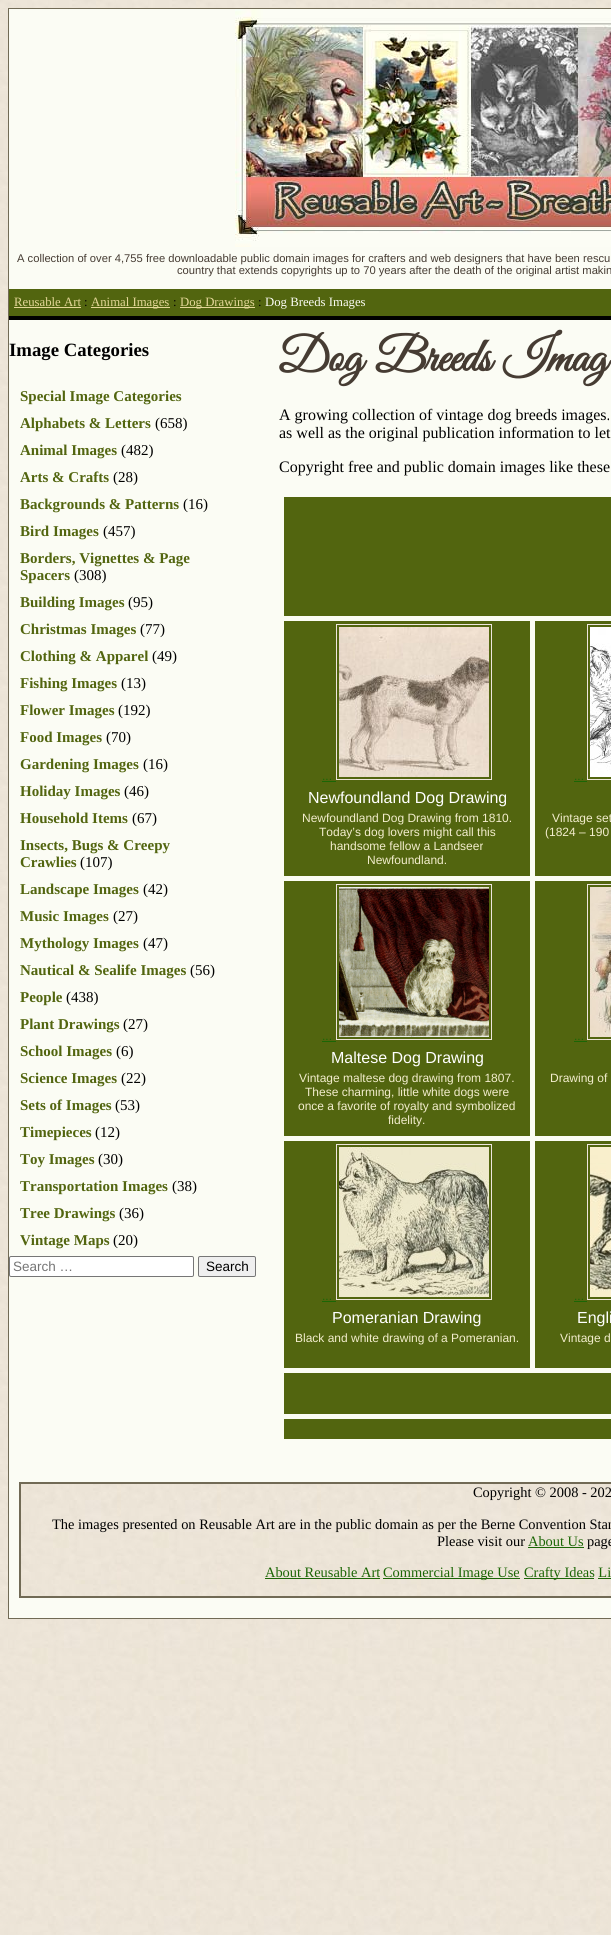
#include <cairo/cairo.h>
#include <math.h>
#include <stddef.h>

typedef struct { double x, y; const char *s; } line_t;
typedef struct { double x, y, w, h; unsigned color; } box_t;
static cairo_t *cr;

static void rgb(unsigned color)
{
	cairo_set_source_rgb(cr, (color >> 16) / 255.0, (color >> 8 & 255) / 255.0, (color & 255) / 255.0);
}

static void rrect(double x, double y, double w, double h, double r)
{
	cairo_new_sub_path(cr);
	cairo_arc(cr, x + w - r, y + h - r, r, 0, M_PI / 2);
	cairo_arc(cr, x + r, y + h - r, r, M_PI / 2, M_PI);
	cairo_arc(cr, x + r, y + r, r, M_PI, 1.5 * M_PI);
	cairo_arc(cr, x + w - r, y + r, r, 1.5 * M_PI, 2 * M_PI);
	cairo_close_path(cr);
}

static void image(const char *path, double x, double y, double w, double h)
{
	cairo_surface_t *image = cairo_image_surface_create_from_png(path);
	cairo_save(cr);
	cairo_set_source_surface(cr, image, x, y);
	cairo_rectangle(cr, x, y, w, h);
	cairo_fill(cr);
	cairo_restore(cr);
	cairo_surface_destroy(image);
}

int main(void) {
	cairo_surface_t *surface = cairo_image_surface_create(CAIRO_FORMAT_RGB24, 611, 1935);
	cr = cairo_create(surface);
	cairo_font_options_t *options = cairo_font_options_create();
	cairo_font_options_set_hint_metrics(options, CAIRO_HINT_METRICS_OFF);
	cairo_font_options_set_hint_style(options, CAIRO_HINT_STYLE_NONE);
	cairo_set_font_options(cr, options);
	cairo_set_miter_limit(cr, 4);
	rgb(0xffffff);
	cairo_paint(cr);
	image("img/1.png", 0, 0, 611, 1935);
	rgb(0xfbfcf4);
	cairo_rectangle(cr, 8.5, 8.5, 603, 1610);
	cairo_fill_preserve(cr);
	rgb(0x716a55);
	cairo_set_line_width(cr, 1);
	cairo_stroke(cr);
	image("img/2.png", 235, 9, 376, 238);
	{
		static const box_t items[] = {
			{9, 289, 602, 27, 0x52650f},
			{14, 307, 67, 1, 0xe4d798},
			{91, 307, 79, 1, 0xe4d798},
			{180, 307, 75, 1, 0xe4d798},
		};
		for (size_t i = 0; i < sizeof items / sizeof *items; i++) {
			rgb(items[i].color);
			cairo_rectangle(cr, items[i].x, items[i].y, items[i].w, items[i].h);
			cairo_fill(cr);
		}
	}
	rgb(0xffffff);
	rrect(9.5, 1256.5, 184, 20, 1.5);
	cairo_fill_preserve(cr);
	rgb(0x767676);
	cairo_stroke(cr);
	rgb(0xefefef);
	rrect(198.5, 1256.5, 57, 20, 1.5);
	cairo_fill_preserve(cr);
	rgb(0x767676);
	cairo_stroke(cr);
	{
		static const box_t items[] = {
			{9, 316, 602, 4, 0x000000},
			{284, 497, 327, 119, 0x52650f},
			{284, 621, 246, 255, 0x52650f},
		};
		for (size_t i = 0; i < sizeof items / sizeof *items; i++) {
			rgb(items[i].color);
			cairo_rectangle(cr, items[i].x, items[i].y, items[i].w, items[i].h);
			cairo_fill(cr);
		}
	}
	cairo_rectangle(cr, 336.5, 624.5, 155, 155);
	rgb(0xeee6dd);
	cairo_stroke(cr);
	image("img/3.png", 339, 627, 150, 150);
	rgb(0x1b6605);
	cairo_rectangle(cr, 322, 781, 14, 1);
	cairo_fill(cr);
	rgb(0x52650f);
	cairo_rectangle(cr, 535, 621, 76, 255);
	cairo_fill(cr);
	cairo_rectangle(cr, 587.5, 624.5, 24, 155);
	rgb(0xeee6dd);
	cairo_stroke(cr);
	image("img/4.png", 590, 627, 21, 150);
	rgb(0x1b6605);
	cairo_rectangle(cr, 574, 781, 13, 1);
	cairo_fill(cr);
	rgb(0x52650f);
	cairo_rectangle(cr, 284, 881, 246, 255);
	cairo_fill(cr);
	cairo_rectangle(cr, 336.5, 884.5, 155, 155);
	rgb(0xeee6dd);
	cairo_stroke(cr);
	image("img/5.png", 339, 887, 150, 150);
	rgb(0x1b6605);
	cairo_rectangle(cr, 322, 1041, 14, 1);
	cairo_fill(cr);
	rgb(0x52650f);
	cairo_rectangle(cr, 535, 881, 76, 255);
	cairo_fill(cr);
	cairo_rectangle(cr, 587.5, 884.5, 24, 155);
	rgb(0xeee6dd);
	cairo_stroke(cr);
	image("img/6.png", 590, 887, 21, 150);
	rgb(0x1b6605);
	cairo_rectangle(cr, 574, 1041, 13, 1);
	cairo_fill(cr);
	rgb(0x52650f);
	cairo_rectangle(cr, 284, 1141, 246, 227);
	cairo_fill(cr);
	cairo_rectangle(cr, 336.5, 1144.5, 155, 155);
	rgb(0xeee6dd);
	cairo_stroke(cr);
	image("img/7.png", 339, 1147, 150, 150);
	rgb(0x1b6605);
	cairo_rectangle(cr, 322, 1301, 14, 1);
	cairo_fill(cr);
	rgb(0x52650f);
	cairo_rectangle(cr, 535, 1141, 76, 227);
	cairo_fill(cr);
	cairo_rectangle(cr, 587.5, 1144.5, 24, 155);
	rgb(0xeee6dd);
	cairo_stroke(cr);
	image("img/8.png", 590, 1147, 21, 150);
	{
		static const box_t items[] = {
			{574, 1301, 13, 1, 0x1b6605},
			{284, 1373, 327, 41, 0x52650f},
			{284, 1419, 327, 20, 0x52650f},
		};
		for (size_t i = 0; i < sizeof items / sizeof *items; i++) {
			rgb(items[i].color);
			cairo_rectangle(cr, items[i].x, items[i].y, items[i].w, items[i].h);
			cairo_fill(cr);
		}
	}
	image("img/9.png", 21, 1484, 590, 112);
	cairo_rectangle(cr, 20, 1483, 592, 114);
	rgb(0x716a55);
	cairo_set_line_width(cr, 2);
	cairo_stroke(cr);
	{
		static const box_t items[] = {
			{528, 1547, 56, 1, 0x1b6605},
			{265, 1578, 115, 1, 0x1b6605},
			{383, 1578, 137, 1, 0x1b6605},
			{524, 1578, 70, 1, 0x1b6605},
			{598, 1578, 13, 1, 0x1b6605},
		};
		for (size_t i = 0; i < sizeof items / sizeof *items; i++) {
			rgb(items[i].color);
			cairo_rectangle(cr, items[i].x, items[i].y, items[i].w, items[i].h);
			cairo_fill(cr);
		}
	}
	cairo_select_font_face(cr, "Liberation Sans", CAIRO_FONT_SLANT_NORMAL, CAIRO_FONT_WEIGHT_NORMAL);
	cairo_set_font_size(cr, 11.2);
	rgb(0x463c33);
	cairo_move_to(cr, 17, 262);
	cairo_show_text(cr, "A collection of over 4,755 free downloadable public domain images for crafters and web designers that have been rescu");
	cairo_move_to(cr, 177, 274);
	cairo_show_text(cr, "country that extends copyrights up to 70 years after the death of the original artist makin");
	cairo_select_font_face(cr, "Liberation Serif", CAIRO_FONT_SLANT_NORMAL, CAIRO_FONT_WEIGHT_NORMAL);
	cairo_set_font_size(cr, 12.75);
	rgb(0xe4d798);
	cairo_move_to(cr, 14, 306);
	cairo_show_text(cr, "Reusable Art");
	rgb(0x000000);
	cairo_move_to(cr, 84, 306);
	cairo_show_text(cr, ":");
	rgb(0xe4d798);
	cairo_move_to(cr, 91, 306);
	cairo_show_text(cr, "Animal Images");
	rgb(0x000000);
	cairo_move_to(cr, 173, 306);
	cairo_show_text(cr, ":");
	rgb(0xe4d798);
	cairo_move_to(cr, 180, 306);
	cairo_show_text(cr, "Dog Drawings");
	rgb(0x000000);
	cairo_move_to(cr, 258, 306);
	cairo_show_text(cr, ":");
	rgb(0xfbfcf4);
	cairo_move_to(cr, 265, 306);
	cairo_show_text(cr, "Dog Breeds Images");
	cairo_select_font_face(cr, "Liberation Serif", CAIRO_FONT_SLANT_NORMAL, CAIRO_FONT_WEIGHT_BOLD);
	cairo_set_font_size(cr, 18.75);
	rgb(0x000000);
	cairo_move_to(cr, 9, 356);
	cairo_show_text(cr, "Image Categories");
	cairo_set_font_size(cr, 15);
	rgb(0x52650f);
	cairo_move_to(cr, 20, 401);
	cairo_show_text(cr, "Special Image Categories");
	cairo_move_to(cr, 20, 428);
	cairo_show_text(cr, "Alphabets & Letters");
	cairo_select_font_face(cr, "Liberation Serif", CAIRO_FONT_SLANT_NORMAL, CAIRO_FONT_WEIGHT_NORMAL);
	rgb(0x000000);
	cairo_move_to(cr, 155, 428);
	cairo_show_text(cr, "(658)");
	cairo_select_font_face(cr, "Liberation Serif", CAIRO_FONT_SLANT_NORMAL, CAIRO_FONT_WEIGHT_BOLD);
	rgb(0x52650f);
	cairo_move_to(cr, 20, 455);
	cairo_show_text(cr, "Animal Images");
	cairo_select_font_face(cr, "Liberation Serif", CAIRO_FONT_SLANT_NORMAL, CAIRO_FONT_WEIGHT_NORMAL);
	rgb(0x000000);
	cairo_move_to(cr, 121, 455);
	cairo_show_text(cr, "(482)");
	cairo_select_font_face(cr, "Liberation Serif", CAIRO_FONT_SLANT_NORMAL, CAIRO_FONT_WEIGHT_BOLD);
	rgb(0x52650f);
	cairo_move_to(cr, 20, 482);
	cairo_show_text(cr, "Arts & Crafts");
	cairo_select_font_face(cr, "Liberation Serif", CAIRO_FONT_SLANT_NORMAL, CAIRO_FONT_WEIGHT_NORMAL);
	rgb(0x000000);
	cairo_move_to(cr, 113, 482);
	cairo_show_text(cr, "(28)");
	cairo_select_font_face(cr, "Liberation Serif", CAIRO_FONT_SLANT_NORMAL, CAIRO_FONT_WEIGHT_BOLD);
	rgb(0x52650f);
	cairo_move_to(cr, 20, 509);
	cairo_show_text(cr, "Backgrounds & Patterns");
	cairo_select_font_face(cr, "Liberation Serif", CAIRO_FONT_SLANT_NORMAL, CAIRO_FONT_WEIGHT_NORMAL);
	rgb(0x000000);
	cairo_move_to(cr, 183, 509);
	cairo_show_text(cr, "(16)");
	cairo_select_font_face(cr, "Liberation Serif", CAIRO_FONT_SLANT_NORMAL, CAIRO_FONT_WEIGHT_BOLD);
	rgb(0x52650f);
	cairo_move_to(cr, 20, 536);
	cairo_show_text(cr, "Bird Images");
	cairo_select_font_face(cr, "Liberation Serif", CAIRO_FONT_SLANT_NORMAL, CAIRO_FONT_WEIGHT_NORMAL);
	rgb(0x000000);
	cairo_move_to(cr, 103, 536);
	cairo_show_text(cr, "(457)");
	cairo_select_font_face(cr, "Liberation Serif", CAIRO_FONT_SLANT_NORMAL, CAIRO_FONT_WEIGHT_BOLD);
	rgb(0x52650f);
	cairo_move_to(cr, 20, 563);
	cairo_show_text(cr, "Borders, Vignettes & Page");
	cairo_move_to(cr, 20, 580);
	cairo_show_text(cr, "Spacers");
	cairo_select_font_face(cr, "Liberation Serif", CAIRO_FONT_SLANT_NORMAL, CAIRO_FONT_WEIGHT_NORMAL);
	rgb(0x000000);
	cairo_move_to(cr, 74, 580);
	cairo_show_text(cr, "(308)");
	cairo_select_font_face(cr, "Liberation Serif", CAIRO_FONT_SLANT_NORMAL, CAIRO_FONT_WEIGHT_BOLD);
	rgb(0x52650f);
	cairo_move_to(cr, 20, 607);
	cairo_show_text(cr, "Building Images");
	cairo_select_font_face(cr, "Liberation Serif", CAIRO_FONT_SLANT_NORMAL, CAIRO_FONT_WEIGHT_NORMAL);
	rgb(0x000000);
	cairo_move_to(cr, 128, 607);
	cairo_show_text(cr, "(95)");
	cairo_select_font_face(cr, "Liberation Serif", CAIRO_FONT_SLANT_NORMAL, CAIRO_FONT_WEIGHT_BOLD);
	rgb(0x52650f);
	cairo_move_to(cr, 20, 634);
	cairo_show_text(cr, "Christmas Images");
	cairo_select_font_face(cr, "Liberation Serif", CAIRO_FONT_SLANT_NORMAL, CAIRO_FONT_WEIGHT_NORMAL);
	rgb(0x000000);
	cairo_move_to(cr, 140, 634);
	cairo_show_text(cr, "(77)");
	cairo_select_font_face(cr, "Liberation Serif", CAIRO_FONT_SLANT_NORMAL, CAIRO_FONT_WEIGHT_BOLD);
	rgb(0x52650f);
	cairo_move_to(cr, 20, 661);
	cairo_show_text(cr, "Clothing & Apparel");
	cairo_select_font_face(cr, "Liberation Serif", CAIRO_FONT_SLANT_NORMAL, CAIRO_FONT_WEIGHT_NORMAL);
	rgb(0x000000);
	cairo_move_to(cr, 152, 661);
	cairo_show_text(cr, "(49)");
	cairo_select_font_face(cr, "Liberation Serif", CAIRO_FONT_SLANT_NORMAL, CAIRO_FONT_WEIGHT_BOLD);
	rgb(0x52650f);
	cairo_move_to(cr, 20, 688);
	cairo_show_text(cr, "Fishing Images");
	cairo_select_font_face(cr, "Liberation Serif", CAIRO_FONT_SLANT_NORMAL, CAIRO_FONT_WEIGHT_NORMAL);
	rgb(0x000000);
	cairo_move_to(cr, 121, 688);
	cairo_show_text(cr, "(13)");
	cairo_select_font_face(cr, "Liberation Serif", CAIRO_FONT_SLANT_NORMAL, CAIRO_FONT_WEIGHT_BOLD);
	rgb(0x52650f);
	cairo_move_to(cr, 20, 715);
	cairo_show_text(cr, "Flower Images");
	cairo_select_font_face(cr, "Liberation Serif", CAIRO_FONT_SLANT_NORMAL, CAIRO_FONT_WEIGHT_NORMAL);
	rgb(0x000000);
	cairo_move_to(cr, 118, 715);
	cairo_show_text(cr, "(192)");
	cairo_select_font_face(cr, "Liberation Serif", CAIRO_FONT_SLANT_NORMAL, CAIRO_FONT_WEIGHT_BOLD);
	rgb(0x52650f);
	cairo_move_to(cr, 20, 742);
	cairo_show_text(cr, "Food Images");
	cairo_select_font_face(cr, "Liberation Serif", CAIRO_FONT_SLANT_NORMAL, CAIRO_FONT_WEIGHT_NORMAL);
	rgb(0x000000);
	cairo_move_to(cr, 106, 742);
	cairo_show_text(cr, "(70)");
	cairo_select_font_face(cr, "Liberation Serif", CAIRO_FONT_SLANT_NORMAL, CAIRO_FONT_WEIGHT_BOLD);
	rgb(0x52650f);
	cairo_move_to(cr, 20, 769);
	cairo_show_text(cr, "Gardening Images");
	cairo_select_font_face(cr, "Liberation Serif", CAIRO_FONT_SLANT_NORMAL, CAIRO_FONT_WEIGHT_NORMAL);
	rgb(0x000000);
	cairo_move_to(cr, 143, 769);
	cairo_show_text(cr, "(16)");
	cairo_select_font_face(cr, "Liberation Serif", CAIRO_FONT_SLANT_NORMAL, CAIRO_FONT_WEIGHT_BOLD);
	rgb(0x52650f);
	cairo_move_to(cr, 20, 796);
	cairo_show_text(cr, "Holiday Images");
	cairo_select_font_face(cr, "Liberation Serif", CAIRO_FONT_SLANT_NORMAL, CAIRO_FONT_WEIGHT_NORMAL);
	rgb(0x000000);
	cairo_move_to(cr, 124, 796);
	cairo_show_text(cr, "(46)");
	cairo_select_font_face(cr, "Liberation Serif", CAIRO_FONT_SLANT_NORMAL, CAIRO_FONT_WEIGHT_BOLD);
	rgb(0x52650f);
	cairo_move_to(cr, 20, 823);
	cairo_show_text(cr, "Household Items");
	cairo_select_font_face(cr, "Liberation Serif", CAIRO_FONT_SLANT_NORMAL, CAIRO_FONT_WEIGHT_NORMAL);
	rgb(0x000000);
	cairo_move_to(cr, 132, 823);
	cairo_show_text(cr, "(67)");
	cairo_select_font_face(cr, "Liberation Serif", CAIRO_FONT_SLANT_NORMAL, CAIRO_FONT_WEIGHT_BOLD);
	rgb(0x52650f);
	cairo_move_to(cr, 20, 850);
	cairo_show_text(cr, "Insects, Bugs & Creepy");
	cairo_move_to(cr, 20, 867);
	cairo_show_text(cr, "Crawlies");
	cairo_select_font_face(cr, "Liberation Serif", CAIRO_FONT_SLANT_NORMAL, CAIRO_FONT_WEIGHT_NORMAL);
	rgb(0x000000);
	cairo_move_to(cr, 80, 867);
	cairo_show_text(cr, "(107)");
	cairo_select_font_face(cr, "Liberation Serif", CAIRO_FONT_SLANT_NORMAL, CAIRO_FONT_WEIGHT_BOLD);
	rgb(0x52650f);
	cairo_move_to(cr, 20, 894);
	cairo_show_text(cr, "Landscape Images");
	cairo_select_font_face(cr, "Liberation Serif", CAIRO_FONT_SLANT_NORMAL, CAIRO_FONT_WEIGHT_NORMAL);
	rgb(0x000000);
	cairo_move_to(cr, 143, 894);
	cairo_show_text(cr, "(42)");
	cairo_select_font_face(cr, "Liberation Serif", CAIRO_FONT_SLANT_NORMAL, CAIRO_FONT_WEIGHT_BOLD);
	rgb(0x52650f);
	cairo_move_to(cr, 20, 921);
	cairo_show_text(cr, "Music Images");
	cairo_select_font_face(cr, "Liberation Serif", CAIRO_FONT_SLANT_NORMAL, CAIRO_FONT_WEIGHT_NORMAL);
	rgb(0x000000);
	cairo_move_to(cr, 113, 921);
	cairo_show_text(cr, "(27)");
	cairo_select_font_face(cr, "Liberation Serif", CAIRO_FONT_SLANT_NORMAL, CAIRO_FONT_WEIGHT_BOLD);
	rgb(0x52650f);
	cairo_move_to(cr, 20, 948);
	cairo_show_text(cr, "Mythology Images");
	cairo_select_font_face(cr, "Liberation Serif", CAIRO_FONT_SLANT_NORMAL, CAIRO_FONT_WEIGHT_NORMAL);
	rgb(0x000000);
	cairo_move_to(cr, 143, 948);
	cairo_show_text(cr, "(47)");
	cairo_select_font_face(cr, "Liberation Serif", CAIRO_FONT_SLANT_NORMAL, CAIRO_FONT_WEIGHT_BOLD);
	rgb(0x52650f);
	cairo_move_to(cr, 20, 975);
	cairo_show_text(cr, "Nautical & Sealife Images");
	cairo_select_font_face(cr, "Liberation Serif", CAIRO_FONT_SLANT_NORMAL, CAIRO_FONT_WEIGHT_NORMAL);
	rgb(0x000000);
	cairo_move_to(cr, 190, 975);
	cairo_show_text(cr, "(56)");
	cairo_select_font_face(cr, "Liberation Serif", CAIRO_FONT_SLANT_NORMAL, CAIRO_FONT_WEIGHT_BOLD);
	rgb(0x52650f);
	cairo_move_to(cr, 20, 1002);
	cairo_show_text(cr, "People");
	cairo_select_font_face(cr, "Liberation Serif", CAIRO_FONT_SLANT_NORMAL, CAIRO_FONT_WEIGHT_NORMAL);
	rgb(0x000000);
	cairo_move_to(cr, 66, 1002);
	cairo_show_text(cr, "(438)");
	cairo_select_font_face(cr, "Liberation Serif", CAIRO_FONT_SLANT_NORMAL, CAIRO_FONT_WEIGHT_BOLD);
	rgb(0x52650f);
	cairo_move_to(cr, 20, 1029);
	cairo_show_text(cr, "Plant Drawings");
	cairo_select_font_face(cr, "Liberation Serif", CAIRO_FONT_SLANT_NORMAL, CAIRO_FONT_WEIGHT_NORMAL);
	rgb(0x000000);
	cairo_move_to(cr, 123, 1029);
	cairo_show_text(cr, "(27)");
	cairo_select_font_face(cr, "Liberation Serif", CAIRO_FONT_SLANT_NORMAL, CAIRO_FONT_WEIGHT_BOLD);
	rgb(0x52650f);
	cairo_move_to(cr, 20, 1056);
	cairo_show_text(cr, "School Images");
	cairo_select_font_face(cr, "Liberation Serif", CAIRO_FONT_SLANT_NORMAL, CAIRO_FONT_WEIGHT_NORMAL);
	rgb(0x000000);
	cairo_move_to(cr, 116, 1056);
	cairo_show_text(cr, "(6)");
	cairo_select_font_face(cr, "Liberation Serif", CAIRO_FONT_SLANT_NORMAL, CAIRO_FONT_WEIGHT_BOLD);
	rgb(0x52650f);
	cairo_move_to(cr, 20, 1083);
	cairo_show_text(cr, "Science Images");
	cairo_select_font_face(cr, "Liberation Serif", CAIRO_FONT_SLANT_NORMAL, CAIRO_FONT_WEIGHT_NORMAL);
	rgb(0x000000);
	cairo_move_to(cr, 121, 1083);
	cairo_show_text(cr, "(22)");
	cairo_select_font_face(cr, "Liberation Serif", CAIRO_FONT_SLANT_NORMAL, CAIRO_FONT_WEIGHT_BOLD);
	rgb(0x52650f);
	cairo_move_to(cr, 20, 1110);
	cairo_show_text(cr, "Sets of Images");
	cairo_select_font_face(cr, "Liberation Serif", CAIRO_FONT_SLANT_NORMAL, CAIRO_FONT_WEIGHT_NORMAL);
	rgb(0x000000);
	cairo_move_to(cr, 115, 1110);
	cairo_show_text(cr, "(53)");
	cairo_select_font_face(cr, "Liberation Serif", CAIRO_FONT_SLANT_NORMAL, CAIRO_FONT_WEIGHT_BOLD);
	rgb(0x52650f);
	cairo_move_to(cr, 20, 1137);
	cairo_show_text(cr, "Timepieces");
	cairo_select_font_face(cr, "Liberation Serif", CAIRO_FONT_SLANT_NORMAL, CAIRO_FONT_WEIGHT_NORMAL);
	rgb(0x000000);
	cairo_move_to(cr, 95, 1137);
	cairo_show_text(cr, "(12)");
	cairo_select_font_face(cr, "Liberation Serif", CAIRO_FONT_SLANT_NORMAL, CAIRO_FONT_WEIGHT_BOLD);
	rgb(0x52650f);
	cairo_move_to(cr, 20, 1164);
	cairo_show_text(cr, "Toy Images");
	cairo_select_font_face(cr, "Liberation Serif", CAIRO_FONT_SLANT_NORMAL, CAIRO_FONT_WEIGHT_NORMAL);
	rgb(0x000000);
	cairo_move_to(cr, 98, 1164);
	cairo_show_text(cr, "(30)");
	cairo_select_font_face(cr, "Liberation Serif", CAIRO_FONT_SLANT_NORMAL, CAIRO_FONT_WEIGHT_BOLD);
	rgb(0x52650f);
	cairo_move_to(cr, 20, 1191);
	cairo_show_text(cr, "Transportation Images");
	cairo_select_font_face(cr, "Liberation Serif", CAIRO_FONT_SLANT_NORMAL, CAIRO_FONT_WEIGHT_NORMAL);
	rgb(0x000000);
	cairo_move_to(cr, 172, 1191);
	cairo_show_text(cr, "(38)");
	cairo_select_font_face(cr, "Liberation Serif", CAIRO_FONT_SLANT_NORMAL, CAIRO_FONT_WEIGHT_BOLD);
	rgb(0x52650f);
	cairo_move_to(cr, 20, 1218);
	cairo_show_text(cr, "Tree Drawings");
	cairo_select_font_face(cr, "Liberation Serif", CAIRO_FONT_SLANT_NORMAL, CAIRO_FONT_WEIGHT_NORMAL);
	rgb(0x000000);
	cairo_move_to(cr, 119, 1218);
	cairo_show_text(cr, "(36)");
	cairo_select_font_face(cr, "Liberation Serif", CAIRO_FONT_SLANT_NORMAL, CAIRO_FONT_WEIGHT_BOLD);
	rgb(0x52650f);
	cairo_move_to(cr, 20, 1245);
	cairo_show_text(cr, "Vintage Maps");
	cairo_select_font_face(cr, "Liberation Serif", CAIRO_FONT_SLANT_NORMAL, CAIRO_FONT_WEIGHT_NORMAL);
	rgb(0x000000);
	cairo_move_to(cr, 113, 1245);
	cairo_show_text(cr, "(20)");
	cairo_select_font_face(cr, "Liberation Sans", CAIRO_FONT_SLANT_NORMAL, CAIRO_FONT_WEIGHT_NORMAL);
	cairo_set_font_size(cr, 13.5);
	rgb(0x757575);
	cairo_move_to(cr, 13, 1271);
	cairo_show_text(cr, "Search …");
	rgb(0x000000);
	cairo_move_to(cr, 206, 1271);
	cairo_show_text(cr, "Search");
	cairo_select_font_face(cr, "Great Vibes", CAIRO_FONT_SLANT_NORMAL, CAIRO_FONT_WEIGHT_BOLD);
	cairo_set_font_size(cr, 48);
	rgb(0x463c33);
	cairo_move_to(cr, 279, 371);
	cairo_show_text(cr, "Dog Breeds Imag");
	cairo_select_font_face(cr, "Liberation Serif", CAIRO_FONT_SLANT_NORMAL, CAIRO_FONT_WEIGHT_NORMAL);
	cairo_set_font_size(cr, 16);
	rgb(0x000000);
	{
		static const line_t items[] = {
			{279, 420, "A growing collection of vintage dog breeds images."},
			{279, 438, "as well as the original publication information to let"},
			{279, 472, "Copyright free and public domain images like these"},
		};
		for (size_t i = 0; i < sizeof items / sizeof *items; i++) {
			cairo_move_to(cr, items[i].x, items[i].y);
			cairo_show_text(cr, items[i].s);
		}
	}
	cairo_select_font_face(cr, "Liberation Sans", CAIRO_FONT_SLANT_NORMAL, CAIRO_FONT_WEIGHT_NORMAL);
	cairo_set_font_size(cr, 12);
	rgb(0x1b6605);
	cairo_move_to(cr, 322, 780);
	cairo_show_text(cr, "...");
	cairo_set_font_size(cr, 16);
	rgb(0xffffff);
	cairo_move_to(cr, 308, 803);
	cairo_show_text(cr, "Newfoundland Dog Drawing");
	cairo_set_font_size(cr, 12);
	rgb(0xf3edcd);
	{
		static const line_t items[] = {
			{302, 822, "Newfoundland Dog Drawing from 1810."},
			{319, 836, "Today’s dog lovers might call this"},
			{330, 850, "handsome fellow a Landseer"},
			{367, 864, "Newfoundland."},
		};
		for (size_t i = 0; i < sizeof items / sizeof *items; i++) {
			cairo_move_to(cr, items[i].x, items[i].y);
			cairo_show_text(cr, items[i].s);
		}
	}
	rgb(0x1b6605);
	cairo_move_to(cr, 574, 780);
	cairo_show_text(cr, "...");
	rgb(0xf3edcd);
	cairo_move_to(cr, 552, 822);
	cairo_show_text(cr, "Vintage set");
	cairo_move_to(cr, 545, 836);
	cairo_show_text(cr, "(1824 – 190");
	rgb(0x1b6605);
	cairo_move_to(cr, 322, 1040);
	cairo_show_text(cr, "...");
	cairo_set_font_size(cr, 16);
	rgb(0xffffff);
	cairo_move_to(cr, 331, 1063);
	cairo_show_text(cr, "Maltese Dog Drawing");
	cairo_set_font_size(cr, 12);
	rgb(0xf3edcd);
	{
		static const line_t items[] = {
			{299, 1082, "Vintage maltese dog drawing from 1807."},
			{305, 1096, "These charming, little white dogs were"},
			{298, 1110, "once a favorite of royalty and symbolized"},
			{388, 1124, "fidelity."},
		};
		for (size_t i = 0; i < sizeof items / sizeof *items; i++) {
			cairo_move_to(cr, items[i].x, items[i].y);
			cairo_show_text(cr, items[i].s);
		}
	}
	rgb(0x1b6605);
	cairo_move_to(cr, 574, 1040);
	cairo_show_text(cr, "...");
	rgb(0xf3edcd);
	cairo_move_to(cr, 550, 1082);
	cairo_show_text(cr, "Drawing of");
	rgb(0x1b6605);
	cairo_move_to(cr, 322, 1300);
	cairo_show_text(cr, "...");
	cairo_set_font_size(cr, 16);
	rgb(0xffffff);
	cairo_move_to(cr, 332, 1323);
	cairo_show_text(cr, "Pomeranian Drawing");
	cairo_set_font_size(cr, 12);
	rgb(0xf3edcd);
	cairo_move_to(cr, 295, 1342);
	cairo_show_text(cr, "Black and white drawing of a Pomeranian.");
	rgb(0x1b6605);
	cairo_move_to(cr, 574, 1300);
	cairo_show_text(cr, "...");
	cairo_set_font_size(cr, 16);
	rgb(0xffffff);
	cairo_move_to(cr, 577, 1323);
	cairo_show_text(cr, "Engli");
	cairo_set_font_size(cr, 12);
	rgb(0xf3edcd);
	cairo_move_to(cr, 560, 1342);
	cairo_show_text(cr, "Vintage d");
	cairo_select_font_face(cr, "Liberation Serif", CAIRO_FONT_SLANT_NORMAL, CAIRO_FONT_WEIGHT_NORMAL);
	cairo_set_font_size(cr, 14.4);
	rgb(0x000000);
	{
		static const line_t items[] = {
			{473, 1497, "Copyright © 2008 - 202"},
			{52, 1529, "The images presented on Reusable Art are in the public domain as per the Berne Convention Stan"},
			{437, 1546, "Please visit our"},
		};
		for (size_t i = 0; i < sizeof items / sizeof *items; i++) {
			cairo_move_to(cr, items[i].x, items[i].y);
			cairo_show_text(cr, items[i].s);
		}
	}
	rgb(0x1b6605);
	cairo_move_to(cr, 528, 1546);
	cairo_show_text(cr, "About Us");
	rgb(0x000000);
	cairo_move_to(cr, 587, 1546);
	cairo_show_text(cr, "page");
	rgb(0x1b6605);
	{
		static const line_t items[] = {
			{265, 1577, "About Reusable Art"},
			{383, 1577, "Commercial Image Use"},
			{524, 1577, "Crafty Ideas Li"},
		};
		for (size_t i = 0; i < sizeof items / sizeof *items; i++) {
			cairo_move_to(cr, items[i].x, items[i].y);
			cairo_show_text(cr, items[i].s);
		}
	}
	cairo_surface_write_to_png(surface, "page.png");
	cairo_font_options_destroy(options);
	cairo_destroy(cr);
	cairo_surface_destroy(surface);
	return 0;
}
